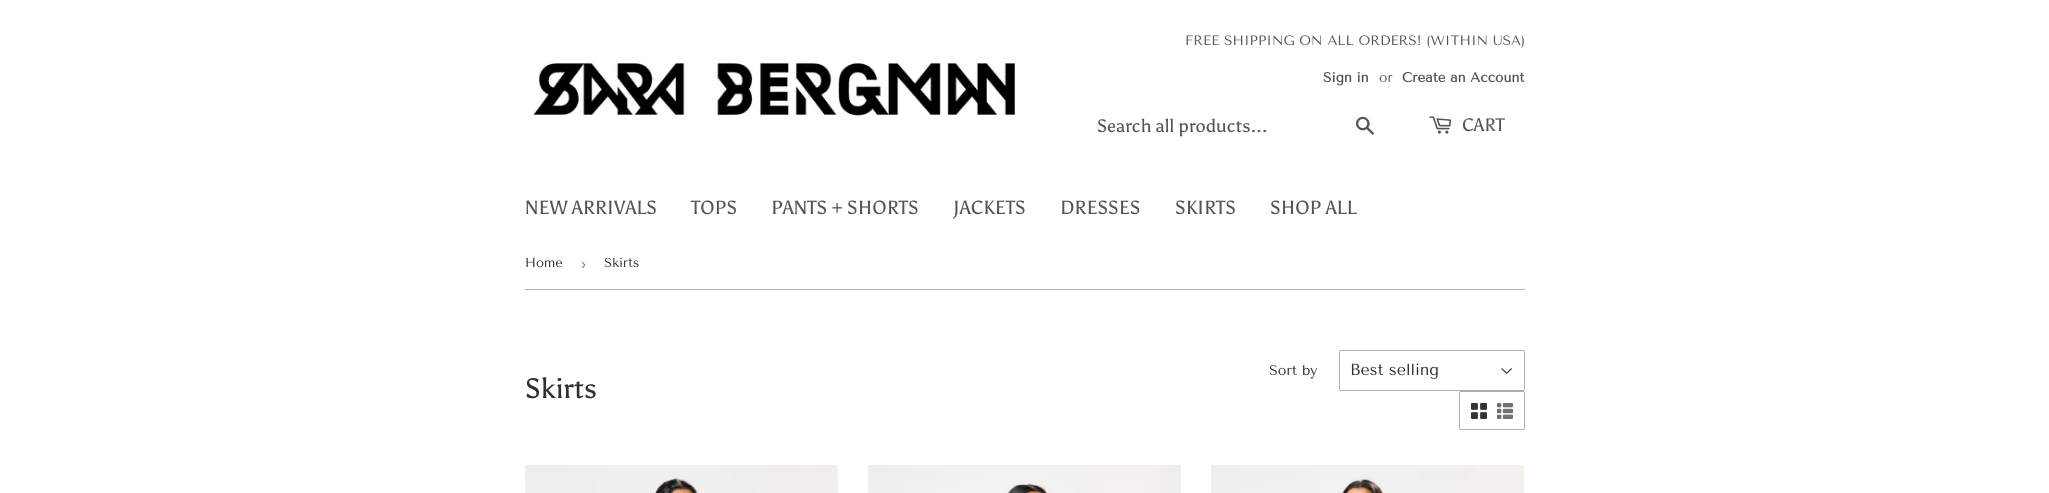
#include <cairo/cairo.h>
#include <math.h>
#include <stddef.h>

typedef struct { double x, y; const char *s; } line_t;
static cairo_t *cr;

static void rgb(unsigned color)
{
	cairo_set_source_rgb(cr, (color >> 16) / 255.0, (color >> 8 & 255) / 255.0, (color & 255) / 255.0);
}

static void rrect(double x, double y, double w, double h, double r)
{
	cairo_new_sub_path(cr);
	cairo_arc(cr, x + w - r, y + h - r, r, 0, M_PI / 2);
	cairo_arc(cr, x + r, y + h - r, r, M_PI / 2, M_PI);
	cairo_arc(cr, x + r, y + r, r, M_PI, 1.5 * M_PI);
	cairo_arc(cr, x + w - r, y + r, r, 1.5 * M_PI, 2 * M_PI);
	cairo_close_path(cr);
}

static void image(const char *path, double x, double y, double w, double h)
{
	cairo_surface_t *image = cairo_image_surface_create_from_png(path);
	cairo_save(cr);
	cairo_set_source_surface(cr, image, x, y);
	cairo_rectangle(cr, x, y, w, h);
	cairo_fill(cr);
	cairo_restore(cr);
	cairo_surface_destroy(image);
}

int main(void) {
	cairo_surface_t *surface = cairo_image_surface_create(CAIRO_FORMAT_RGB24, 2049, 493);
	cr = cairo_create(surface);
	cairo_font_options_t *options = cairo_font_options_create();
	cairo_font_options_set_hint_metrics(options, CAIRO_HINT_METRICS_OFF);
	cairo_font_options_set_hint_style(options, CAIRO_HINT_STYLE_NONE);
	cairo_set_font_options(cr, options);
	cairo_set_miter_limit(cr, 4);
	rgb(0xffffff);
	cairo_paint(cr);
	image("img/1.png", 533, 63, 483, 55);
	image("img/2.png", 1356, 116, 18, 19);
	image("img/3.png", 1429, 116, 23, 18);
	rgb(0xafafaf);
	cairo_rectangle(cr, 525, 289, 1000, 1);
	cairo_fill(cr);
	image("img/4.png", 1501, 368, 11, 6);
	rrect(1339.5, 350.5, 185, 40, 1.5);
	cairo_set_line_width(cr, 1);
	cairo_stroke(cr);
	rrect(1459.5, 391.5, 65, 38, 1.5);
	cairo_stroke(cr);
	image("img/5.png", 1471, 403, 16, 16);
	image("img/6.png", 1497, 403, 16, 16);
	image("img/7.png", 525, 465, 313, 28);
	image("img/8.png", 868, 465, 313, 28);
	image("img/9.png", 1211, 465, 313, 28);
	cairo_select_font_face(cr, "Tenor Sans", CAIRO_FONT_SLANT_NORMAL, CAIRO_FONT_WEIGHT_NORMAL);
	cairo_set_font_size(cr, 13.6);
	rgb(0x545454);
	cairo_move_to(cr, 1185, 45);
	cairo_show_text(cr, "FREE SHIPPING ON ALL ORDERS! (WITHIN USA)");
	cairo_select_font_face(cr, "Tenor Sans", CAIRO_FONT_SLANT_NORMAL, CAIRO_FONT_WEIGHT_BOLD);
	cairo_move_to(cr, 1323, 82);
	cairo_show_text(cr, "Sign in");
	cairo_select_font_face(cr, "Tenor Sans", CAIRO_FONT_SLANT_NORMAL, CAIRO_FONT_WEIGHT_NORMAL);
	cairo_move_to(cr, 1379, 82);
	cairo_show_text(cr, "or");
	cairo_select_font_face(cr, "Tenor Sans", CAIRO_FONT_SLANT_NORMAL, CAIRO_FONT_WEIGHT_BOLD);
	cairo_move_to(cr, 1402, 82);
	cairo_show_text(cr, "Create an Account");
	cairo_select_font_face(cr, "Asul", CAIRO_FONT_SLANT_NORMAL, CAIRO_FONT_WEIGHT_NORMAL);
	cairo_set_font_size(cr, 18);
	cairo_move_to(cr, 1097, 132);
	cairo_show_text(cr, "Search all products...");
	cairo_move_to(cr, 1462, 131);
	cairo_show_text(cr, "CART");
	cairo_set_font_size(cr, 19);
	{
		static const line_t items[] = {
			{525, 214, "NEW ARRIVALS"},
			{691, 214, "TOPS"},
			{771, 214, "PANTS + SHORTS"},
			{953, 214, "JACKETS"},
			{1060, 214, "DRESSES"},
			{1175, 214, "SKIRTS"},
			{1270, 214, "SHOP ALL"},
		};
		for (size_t i = 0; i < sizeof items / sizeof *items; i++) {
			cairo_move_to(cr, items[i].x, items[i].y);
			cairo_show_text(cr, items[i].s);
		}
	}
	cairo_select_font_face(cr, "Tenor Sans", CAIRO_FONT_SLANT_NORMAL, CAIRO_FONT_WEIGHT_NORMAL);
	cairo_set_font_size(cr, 13);
	rgb(0x2f2f2f);
	cairo_move_to(cr, 525, 267);
	cairo_show_text(cr, "Home");
	cairo_select_font_face(cr, "Liberation Sans", CAIRO_FONT_SLANT_NORMAL, CAIRO_FONT_WEIGHT_NORMAL);
	cairo_set_font_size(cr, 15);
	rgb(0x767676);
	cairo_move_to(cr, 581, 269);
	cairo_show_text(cr, "›");
	cairo_select_font_face(cr, "Tenor Sans", CAIRO_FONT_SLANT_NORMAL, CAIRO_FONT_WEIGHT_NORMAL);
	cairo_set_font_size(cr, 13);
	rgb(0x2f2f2f);
	cairo_move_to(cr, 604, 267);
	cairo_show_text(cr, "Skirts");
	cairo_set_font_size(cr, 14);
	cairo_move_to(cr, 1269, 375);
	cairo_show_text(cr, "Sort by");
	cairo_set_font_size(cr, 16);
	cairo_move_to(cr, 1350, 375);
	cairo_show_text(cr, "Best selling");
	cairo_select_font_face(cr, "Asul", CAIRO_FONT_SLANT_NORMAL, CAIRO_FONT_WEIGHT_NORMAL);
	cairo_set_font_size(cr, 28);
	cairo_move_to(cr, 525, 398);
	cairo_show_text(cr, "Skirts");
	cairo_surface_write_to_png(surface, "page.png");
	cairo_font_options_destroy(options);
	cairo_destroy(cr);
	cairo_surface_destroy(surface);
	return 0;
}
